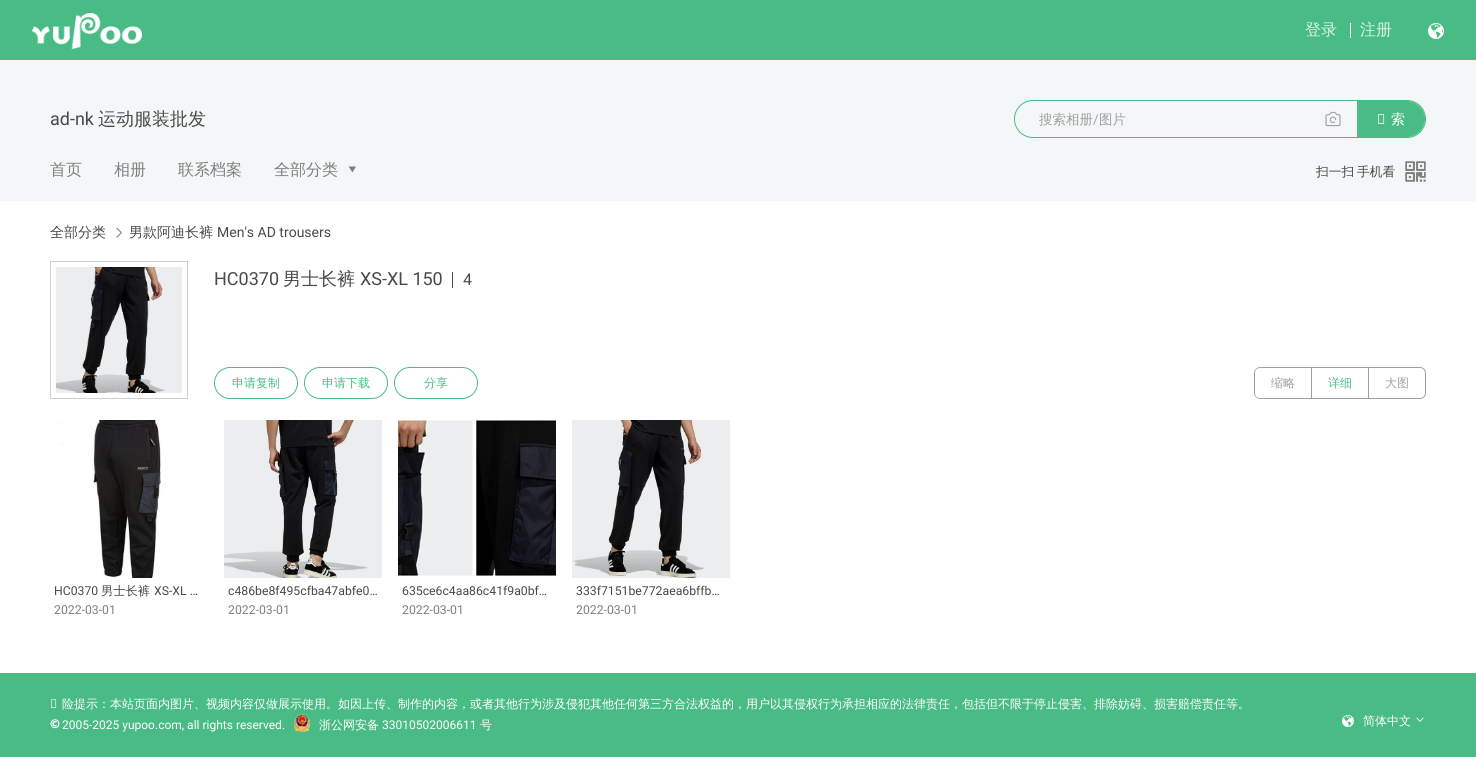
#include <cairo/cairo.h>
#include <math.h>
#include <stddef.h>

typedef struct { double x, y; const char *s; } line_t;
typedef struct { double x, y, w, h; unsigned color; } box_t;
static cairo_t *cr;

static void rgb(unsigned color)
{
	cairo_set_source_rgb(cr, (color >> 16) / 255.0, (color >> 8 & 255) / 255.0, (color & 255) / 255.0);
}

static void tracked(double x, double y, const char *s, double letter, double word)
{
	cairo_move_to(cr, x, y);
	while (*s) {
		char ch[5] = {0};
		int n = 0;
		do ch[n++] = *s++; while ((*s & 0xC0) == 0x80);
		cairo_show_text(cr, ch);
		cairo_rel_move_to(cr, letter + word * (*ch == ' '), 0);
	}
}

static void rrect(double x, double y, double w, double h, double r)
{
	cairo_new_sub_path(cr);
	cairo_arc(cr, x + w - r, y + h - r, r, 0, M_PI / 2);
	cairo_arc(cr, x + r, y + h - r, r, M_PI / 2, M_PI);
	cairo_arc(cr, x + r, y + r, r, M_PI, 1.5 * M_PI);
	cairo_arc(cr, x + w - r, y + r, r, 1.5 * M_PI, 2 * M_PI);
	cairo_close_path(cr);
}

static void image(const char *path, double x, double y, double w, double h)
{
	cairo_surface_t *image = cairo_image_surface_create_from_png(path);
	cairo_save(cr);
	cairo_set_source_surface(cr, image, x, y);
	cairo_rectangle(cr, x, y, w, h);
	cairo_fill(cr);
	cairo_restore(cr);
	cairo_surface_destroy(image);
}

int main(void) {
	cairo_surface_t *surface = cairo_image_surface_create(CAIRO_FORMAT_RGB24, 1476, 757);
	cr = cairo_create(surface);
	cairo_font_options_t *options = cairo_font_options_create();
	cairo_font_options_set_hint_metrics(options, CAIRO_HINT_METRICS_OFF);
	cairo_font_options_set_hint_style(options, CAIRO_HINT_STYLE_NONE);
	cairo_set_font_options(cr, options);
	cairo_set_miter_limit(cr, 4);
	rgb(0xffffff);
	cairo_paint(cr);
	rgb(0x49bc85);
	cairo_rectangle(cr, 0, 0, 1476, 60);
	cairo_fill(cr);
	image("img/1.png", 32, 13, 110, 36);
	rgb(0xffffff);
	cairo_rectangle(cr, 1350, 23, 1, 15);
	cairo_fill(cr);
	image("img/2.png", 1428, 23, 16, 16);
	rgb(0xf3f7f7);
	cairo_rectangle(cr, 0, 60, 1476, 141);
	cairo_fill(cr);
	rrect(1014.5, 100.5, 411, 37, 18.5);
	rgb(0x49bc85);
	cairo_set_line_width(cr, 1);
	cairo_stroke(cr);
	image("img/3.png", 1325, 111, 16, 16);
	cairo_new_path(cr);
	cairo_move_to(cr, 1357.5, 101.5);
	cairo_line_to(cr, 1407, 101.5);
	cairo_curve_to(cr, 1416.5, 101.5, 1424.5, 109.5, 1424.5, 119);
	cairo_curve_to(cr, 1424.5, 128.5, 1416.5, 136.5, 1407, 136.5);
	cairo_line_to(cr, 1357.5, 136.5);
	cairo_close_path(cr);
	cairo_fill_preserve(cr);
	cairo_stroke(cr);
	rgb(0x7f7f7f);
	cairo_new_path(cr);
	cairo_move_to(cr, 352.5, 172.5);
	cairo_line_to(cr, 348.5, 166.5);
	cairo_line_to(cr, 356, 166.5);
	cairo_close_path(cr);
	cairo_fill(cr);
	image("img/4.png", 1405, 161, 21, 21);
	image("img/5.png", 116, 227, 6, 11);
	cairo_rectangle(cr, 50.5, 261.5, 137, 137);
	rgb(0xcfcfcf);
	cairo_stroke(cr);
	image("img/6.png", 56, 267, 126, 126);
	rgb(0x494949);
	cairo_rectangle(cr, 452, 272, 1, 16);
	cairo_fill(cr);
	rrect(214.5, 367.5, 83, 31, 15.5);
	rgb(0x49bc85);
	cairo_stroke(cr);
	rrect(304.5, 367.5, 83, 31, 15.5);
	cairo_stroke(cr);
	rrect(394.5, 367.5, 83, 31, 15.5);
	cairo_stroke(cr);
	rgb(0x9f9f9f);
	cairo_set_fill_rule(cr, CAIRO_FILL_RULE_EVEN_ODD);
	cairo_new_path(cr);
	cairo_move_to(cr, 1260, 367);
	cairo_line_to(cr, 1311, 367);
	cairo_line_to(cr, 1311, 399);
	cairo_line_to(cr, 1260, 399);
	cairo_curve_to(cr, 1257, 399, 1254, 396, 1254, 393);
	cairo_line_to(cr, 1254, 373);
	cairo_curve_to(cr, 1254, 370, 1257, 367, 1260, 367);
	cairo_close_path(cr);
	cairo_move_to(cr, 1260, 368);
	cairo_line_to(cr, 1311, 368);
	cairo_line_to(cr, 1311, 398);
	cairo_line_to(cr, 1260, 398);
	cairo_curve_to(cr, 1257, 398, 1255, 396, 1255, 393);
	cairo_line_to(cr, 1255, 373);
	cairo_curve_to(cr, 1255, 370, 1257, 368, 1260, 368);
	cairo_close_path(cr);
	cairo_fill(cr);
	{
		static const box_t items[] = {
			{1311, 367, 57, 1, 0x9f9f9f},
			{1311, 398, 57, 1, 0x9f9f9f},
			{1311, 367, 1, 32, 0x9f9f9f},
		};
		for (size_t i = 0; i < sizeof items / sizeof *items; i++) {
			rgb(items[i].color);
			cairo_rectangle(cr, items[i].x, items[i].y, items[i].w, items[i].h);
			cairo_fill(cr);
		}
	}
	cairo_new_path(cr);
	cairo_move_to(cr, 1368.5, 367.5);
	cairo_line_to(cr, 1420, 367.5);
	cairo_curve_to(cr, 1423, 367.5, 1425.5, 370, 1425.5, 373);
	cairo_line_to(cr, 1425.5, 393);
	cairo_curve_to(cr, 1425.5, 396, 1423, 398.5, 1420, 398.5);
	cairo_line_to(cr, 1368.5, 398.5);
	cairo_close_path(cr);
	cairo_stroke(cr);
	image("img/7.png", 55, 420, 106, 158);
	image("img/8.png", 224, 420, 158, 158);
	image("img/9.png", 398, 420, 158, 156);
	image("img/10.png", 572, 420, 158, 158);
	rgb(0x49bc85);
	cairo_rectangle(cr, 0, 673, 1476, 84);
	cairo_fill(cr);
	image("img/11.png", 294, 714, 17, 18);
	image("img/12.png", 1342, 715, 12, 12);
	image("img/13.png", 1416, 717, 8, 5);
	cairo_select_font_face(cr, "WenQuanYi Zen Hei Medium", CAIRO_FONT_SLANT_NORMAL, CAIRO_FONT_WEIGHT_NORMAL);
	cairo_set_font_size(cr, 16);
	rgb(0xdbf2e7);
	cairo_move_to(cr, 1305, 35);
	cairo_show_text(cr, "登录");
	cairo_move_to(cr, 1360, 35);
	cairo_show_text(cr, "注册");
	cairo_select_font_face(cr, "Roboto", CAIRO_FONT_SLANT_NORMAL, CAIRO_FONT_WEIGHT_NORMAL);
	cairo_set_font_size(cr, 18);
	rgb(0x494949);
	cairo_move_to(cr, 50, 125);
	cairo_show_text(cr, "ad-nk");
	cairo_select_font_face(cr, "WenQuanYi Zen Hei Medium", CAIRO_FONT_SLANT_NORMAL, CAIRO_FONT_WEIGHT_NORMAL);
	cairo_move_to(cr, 98, 125);
	cairo_show_text(cr, "运动服装批发");
	cairo_set_font_size(cr, 13.5);
	rgb(0x9f9f9f);
	cairo_move_to(cr, 1039, 124);
	cairo_show_text(cr, "搜索相册");
	cairo_select_font_face(cr, "Roboto", CAIRO_FONT_SLANT_NORMAL, CAIRO_FONT_WEIGHT_NORMAL);
	cairo_move_to(cr, 1093, 124);
	cairo_show_text(cr, "/");
	cairo_select_font_face(cr, "WenQuanYi Zen Hei Medium", CAIRO_FONT_SLANT_NORMAL, CAIRO_FONT_WEIGHT_NORMAL);
	cairo_move_to(cr, 1099, 124);
	cairo_show_text(cr, "图片");
	cairo_select_font_face(cr, "Noto Sans", CAIRO_FONT_SLANT_NORMAL, CAIRO_FONT_WEIGHT_NORMAL);
	cairo_set_font_size(cr, 14);
	rgb(0xffffff);
	cairo_move_to(cr, 1377, 124);
	cairo_show_text(cr, "搜");
	cairo_select_font_face(cr, "WenQuanYi Zen Hei Medium", CAIRO_FONT_SLANT_NORMAL, CAIRO_FONT_WEIGHT_NORMAL);
	cairo_move_to(cr, 1391, 124);
	cairo_show_text(cr, "索");
	cairo_set_font_size(cr, 16);
	rgb(0x7f7f7f);
	{
		static const line_t items[] = {
			{50, 175, "首页"},
			{114, 175, "相册"},
			{178, 175, "联系档案"},
			{274, 175, "全部分类"},
		};
		for (size_t i = 0; i < sizeof items / sizeof *items; i++) {
			cairo_move_to(cr, items[i].x, items[i].y);
			cairo_show_text(cr, items[i].s);
		}
	}
	cairo_set_font_size(cr, 12.75);
	rgb(0x494949);
	tracked(1316, 176, "扫一扫 手机看", 0, -1);
	cairo_set_font_size(cr, 14);
	cairo_move_to(cr, 50, 237);
	cairo_show_text(cr, "全部分类");
	cairo_move_to(cr, 129, 237);
	cairo_show_text(cr, "男款阿迪长裤");
	cairo_select_font_face(cr, "Roboto", CAIRO_FONT_SLANT_NORMAL, CAIRO_FONT_WEIGHT_NORMAL);
	cairo_move_to(cr, 217, 237);
	cairo_show_text(cr, "Men's AD trousers");
	cairo_set_font_size(cr, 18);
	cairo_move_to(cr, 214, 285);
	cairo_show_text(cr, "HC0370");
	cairo_select_font_face(cr, "WenQuanYi Zen Hei Medium", CAIRO_FONT_SLANT_NORMAL, CAIRO_FONT_WEIGHT_NORMAL);
	cairo_move_to(cr, 283, 285);
	cairo_show_text(cr, "男士长裤");
	cairo_select_font_face(cr, "Roboto", CAIRO_FONT_SLANT_NORMAL, CAIRO_FONT_WEIGHT_NORMAL);
	cairo_move_to(cr, 360, 285);
	cairo_show_text(cr, "XS-XL 150");
	cairo_set_font_size(cr, 16);
	cairo_move_to(cr, 463, 285);
	cairo_show_text(cr, "4");
	cairo_select_font_face(cr, "WenQuanYi Zen Hei Medium", CAIRO_FONT_SLANT_NORMAL, CAIRO_FONT_WEIGHT_NORMAL);
	cairo_set_font_size(cr, 12);
	rgb(0x49bc85);
	{
		static const line_t items[] = {
			{232, 387, "申请复制"},
			{322, 387, "申请下载"},
			{424, 387, "分享"},
		};
		for (size_t i = 0; i < sizeof items / sizeof *items; i++) {
			cairo_move_to(cr, items[i].x, items[i].y);
			cairo_show_text(cr, items[i].s);
		}
	}
	rgb(0x9f9f9f);
	cairo_move_to(cr, 1271, 387);
	cairo_show_text(cr, "缩略");
	rgb(0x49bc85);
	cairo_move_to(cr, 1328, 387);
	cairo_show_text(cr, "详细");
	rgb(0x9f9f9f);
	cairo_move_to(cr, 1385, 387);
	cairo_show_text(cr, "大图");
	cairo_select_font_face(cr, "Roboto", CAIRO_FONT_SLANT_NORMAL, CAIRO_FONT_WEIGHT_NORMAL);
	cairo_set_font_size(cr, 12.25);
	rgb(0x494949);
	cairo_move_to(cr, 54, 595);
	cairo_show_text(cr, "HC0370");
	cairo_select_font_face(cr, "WenQuanYi Zen Hei Medium", CAIRO_FONT_SLANT_NORMAL, CAIRO_FONT_WEIGHT_NORMAL);
	cairo_move_to(cr, 101, 595);
	cairo_show_text(cr, "男士长裤");
	cairo_select_font_face(cr, "Roboto", CAIRO_FONT_SLANT_NORMAL, CAIRO_FONT_WEIGHT_NORMAL);
	cairo_move_to(cr, 154, 595);
	cairo_show_text(cr, "XS-XL …");
	rgb(0x7f7f7f);
	cairo_move_to(cr, 54, 614);
	cairo_show_text(cr, "2022-03-01");
	rgb(0x494949);
	cairo_move_to(cr, 228, 595);
	cairo_show_text(cr, "c486be8f495cfba47abfe0…");
	rgb(0x7f7f7f);
	cairo_move_to(cr, 228, 614);
	cairo_show_text(cr, "2022-03-01");
	rgb(0x494949);
	cairo_move_to(cr, 402, 595);
	cairo_show_text(cr, "635ce6c4aa86c41f9a0bf…");
	rgb(0x7f7f7f);
	cairo_move_to(cr, 402, 614);
	cairo_show_text(cr, "2022-03-01");
	rgb(0x494949);
	cairo_move_to(cr, 576, 595);
	cairo_show_text(cr, "333f7151be772aea6bffb…");
	rgb(0x7f7f7f);
	cairo_move_to(cr, 576, 614);
	cairo_show_text(cr, "2022-03-01");
	cairo_select_font_face(cr, "Noto Sans", CAIRO_FONT_SLANT_NORMAL, CAIRO_FONT_WEIGHT_NORMAL);
	cairo_set_font_size(cr, 12);
	rgb(0xffffff);
	cairo_move_to(cr, 50, 708);
	cairo_show_text(cr, "风");
	cairo_select_font_face(cr, "WenQuanYi Zen Hei Medium", CAIRO_FONT_SLANT_NORMAL, CAIRO_FONT_WEIGHT_NORMAL);
	cairo_move_to(cr, 62, 708);
	cairo_show_text(cr, "险提示：本站页面内图片、视频内容仅做展示使用。如因上传、制作的内容，或者其他行为涉及侵犯其他任何第三方合法权益的，用户以其侵权行为承担相应的法律责任，包括但不限于停止侵害、排除妨碍、损害赔偿责任等。");
	cairo_select_font_face(cr, "Noto Sans Black", CAIRO_FONT_SLANT_NORMAL, CAIRO_FONT_WEIGHT_NORMAL);
	cairo_move_to(cr, 50, 728);
	cairo_show_text(cr, "©");
	cairo_select_font_face(cr, "Roboto", CAIRO_FONT_SLANT_NORMAL, CAIRO_FONT_WEIGHT_NORMAL);
	cairo_move_to(cr, 62, 729);
	cairo_show_text(cr, "2005-2025 yupoo.com, all rights reserved.");
	cairo_select_font_face(cr, "WenQuanYi Zen Hei Medium", CAIRO_FONT_SLANT_NORMAL, CAIRO_FONT_WEIGHT_NORMAL);
	cairo_move_to(cr, 319, 729);
	cairo_show_text(cr, "浙公网安备");
	cairo_select_font_face(cr, "Roboto", CAIRO_FONT_SLANT_NORMAL, CAIRO_FONT_WEIGHT_NORMAL);
	cairo_move_to(cr, 382, 729);
	cairo_show_text(cr, "33010502006611");
	cairo_select_font_face(cr, "WenQuanYi Zen Hei Medium", CAIRO_FONT_SLANT_NORMAL, CAIRO_FONT_WEIGHT_NORMAL);
	cairo_move_to(cr, 480, 729);
	cairo_show_text(cr, "号");
	cairo_move_to(cr, 1363, 725);
	cairo_show_text(cr, "简体中文");
	cairo_surface_write_to_png(surface, "page.png");
	cairo_font_options_destroy(options);
	cairo_destroy(cr);
	cairo_surface_destroy(surface);
	return 0;
}
